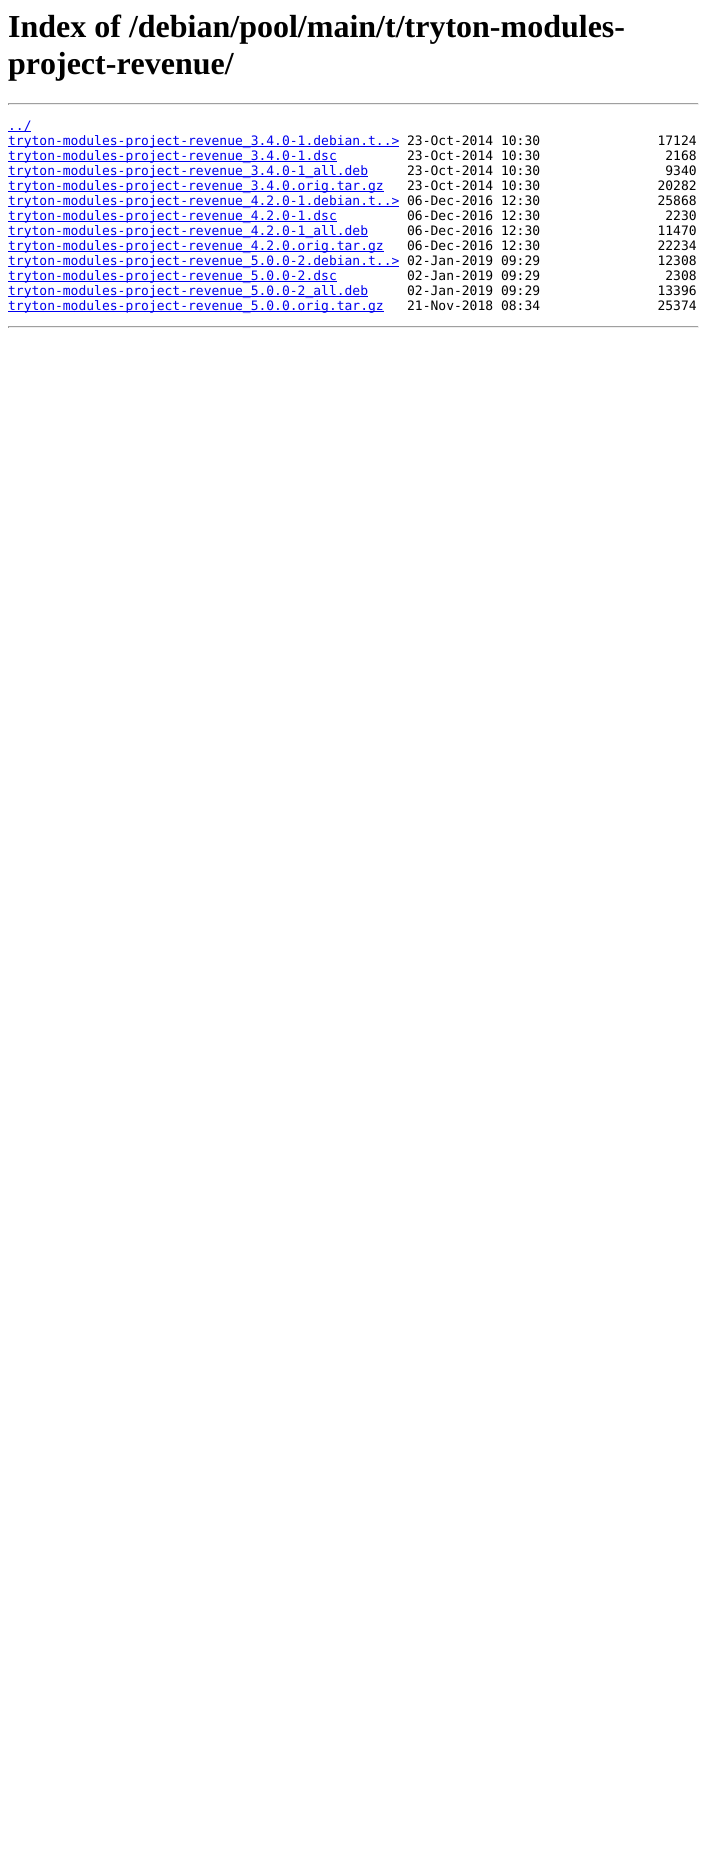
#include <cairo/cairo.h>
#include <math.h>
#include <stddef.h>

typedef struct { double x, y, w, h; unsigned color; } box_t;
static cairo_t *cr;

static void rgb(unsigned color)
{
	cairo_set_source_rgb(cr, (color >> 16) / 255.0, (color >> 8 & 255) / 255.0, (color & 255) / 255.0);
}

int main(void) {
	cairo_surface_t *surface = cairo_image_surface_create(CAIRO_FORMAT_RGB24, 707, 1866);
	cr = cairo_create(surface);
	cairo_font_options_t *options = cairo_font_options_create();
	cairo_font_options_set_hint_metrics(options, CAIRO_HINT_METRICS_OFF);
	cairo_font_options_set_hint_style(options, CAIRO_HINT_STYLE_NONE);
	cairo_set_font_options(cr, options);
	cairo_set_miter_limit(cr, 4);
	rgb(0xffffff);
	cairo_paint(cr);
	{
		static const box_t items[] = {
			{8, 103, 691, 1, 0x9f9f9f},
			{698, 103, 1, 2, 0xeeeeee},
			{8, 104, 691, 1, 0xeeeeee},
			{8, 103, 1, 2, 0x9f9f9f},
			{8, 131, 23, 1, 0x0000ee},
			{8, 146, 391, 1, 0x0000ee},
			{8, 161, 329, 1, 0x0000ee},
			{8, 176, 360, 1, 0x0000ee},
			{8, 191, 376, 1, 0x0000ee},
			{8, 206, 391, 1, 0x0000ee},
			{8, 221, 329, 1, 0x0000ee},
			{8, 236, 360, 1, 0x0000ee},
			{8, 251, 376, 1, 0x0000ee},
			{8, 266, 391, 1, 0x0000ee},
			{8, 281, 329, 1, 0x0000ee},
			{8, 296, 360, 1, 0x0000ee},
			{8, 311, 376, 1, 0x0000ee},
			{8, 326, 691, 1, 0x9f9f9f},
			{698, 326, 1, 2, 0xeeeeee},
			{8, 327, 691, 1, 0xeeeeee},
			{8, 326, 1, 2, 0x9f9f9f},
		};
		for (size_t i = 0; i < sizeof items / sizeof *items; i++) {
			rgb(items[i].color);
			cairo_rectangle(cr, items[i].x, items[i].y, items[i].w, items[i].h);
			cairo_fill(cr);
		}
	}
	cairo_select_font_face(cr, "Liberation Serif", CAIRO_FONT_SLANT_NORMAL, CAIRO_FONT_WEIGHT_BOLD);
	cairo_set_font_size(cr, 32);
	rgb(0x000000);
	cairo_move_to(cr, 8, 37);
	cairo_show_text(cr, "Index of /debian/pool/main/t/tryton-modules-");
	cairo_move_to(cr, 8, 74);
	cairo_show_text(cr, "project-revenue/");
	cairo_select_font_face(cr, "DejaVu Sans Mono", CAIRO_FONT_SLANT_NORMAL, CAIRO_FONT_WEIGHT_NORMAL);
	cairo_set_font_size(cr, 13);
	rgb(0x0000ee);
	cairo_move_to(cr, 8, 130);
	cairo_show_text(cr, "../");
	cairo_move_to(cr, 8, 145);
	cairo_show_text(cr, "tryton-modules-project-revenue_3.4.0-1.debian.t..>");
	rgb(0x000000);
	cairo_move_to(cr, 407, 145);
	cairo_show_text(cr, "23-Oct-2014 10:30               17124");
	rgb(0x0000ee);
	cairo_move_to(cr, 8, 160);
	cairo_show_text(cr, "tryton-modules-project-revenue_3.4.0-1.dsc");
	rgb(0x000000);
	cairo_move_to(cr, 407, 160);
	cairo_show_text(cr, "23-Oct-2014 10:30                2168");
	rgb(0x0000ee);
	cairo_move_to(cr, 8, 175);
	cairo_show_text(cr, "tryton-modules-project-revenue_3.4.0-1_all.deb");
	rgb(0x000000);
	cairo_move_to(cr, 407, 175);
	cairo_show_text(cr, "23-Oct-2014 10:30                9340");
	rgb(0x0000ee);
	cairo_move_to(cr, 8, 190);
	cairo_show_text(cr, "tryton-modules-project-revenue_3.4.0.orig.tar.gz");
	rgb(0x000000);
	cairo_move_to(cr, 407, 190);
	cairo_show_text(cr, "23-Oct-2014 10:30               20282");
	rgb(0x0000ee);
	cairo_move_to(cr, 8, 205);
	cairo_show_text(cr, "tryton-modules-project-revenue_4.2.0-1.debian.t..>");
	rgb(0x000000);
	cairo_move_to(cr, 407, 205);
	cairo_show_text(cr, "06-Dec-2016 12:30               25868");
	rgb(0x0000ee);
	cairo_move_to(cr, 8, 220);
	cairo_show_text(cr, "tryton-modules-project-revenue_4.2.0-1.dsc");
	rgb(0x000000);
	cairo_move_to(cr, 407, 220);
	cairo_show_text(cr, "06-Dec-2016 12:30                2230");
	rgb(0x0000ee);
	cairo_move_to(cr, 8, 235);
	cairo_show_text(cr, "tryton-modules-project-revenue_4.2.0-1_all.deb");
	rgb(0x000000);
	cairo_move_to(cr, 407, 235);
	cairo_show_text(cr, "06-Dec-2016 12:30               11470");
	rgb(0x0000ee);
	cairo_move_to(cr, 8, 250);
	cairo_show_text(cr, "tryton-modules-project-revenue_4.2.0.orig.tar.gz");
	rgb(0x000000);
	cairo_move_to(cr, 407, 250);
	cairo_show_text(cr, "06-Dec-2016 12:30               22234");
	rgb(0x0000ee);
	cairo_move_to(cr, 8, 265);
	cairo_show_text(cr, "tryton-modules-project-revenue_5.0.0-2.debian.t..>");
	rgb(0x000000);
	cairo_move_to(cr, 407, 265);
	cairo_show_text(cr, "02-Jan-2019 09:29               12308");
	rgb(0x0000ee);
	cairo_move_to(cr, 8, 280);
	cairo_show_text(cr, "tryton-modules-project-revenue_5.0.0-2.dsc");
	rgb(0x000000);
	cairo_move_to(cr, 407, 280);
	cairo_show_text(cr, "02-Jan-2019 09:29                2308");
	rgb(0x0000ee);
	cairo_move_to(cr, 8, 295);
	cairo_show_text(cr, "tryton-modules-project-revenue_5.0.0-2_all.deb");
	rgb(0x000000);
	cairo_move_to(cr, 407, 295);
	cairo_show_text(cr, "02-Jan-2019 09:29               13396");
	rgb(0x0000ee);
	cairo_move_to(cr, 8, 310);
	cairo_show_text(cr, "tryton-modules-project-revenue_5.0.0.orig.tar.gz");
	rgb(0x000000);
	cairo_move_to(cr, 407, 310);
	cairo_show_text(cr, "21-Nov-2018 08:34               25374");
	cairo_surface_write_to_png(surface, "page.png");
	cairo_font_options_destroy(options);
	cairo_destroy(cr);
	cairo_surface_destroy(surface);
	return 0;
}
